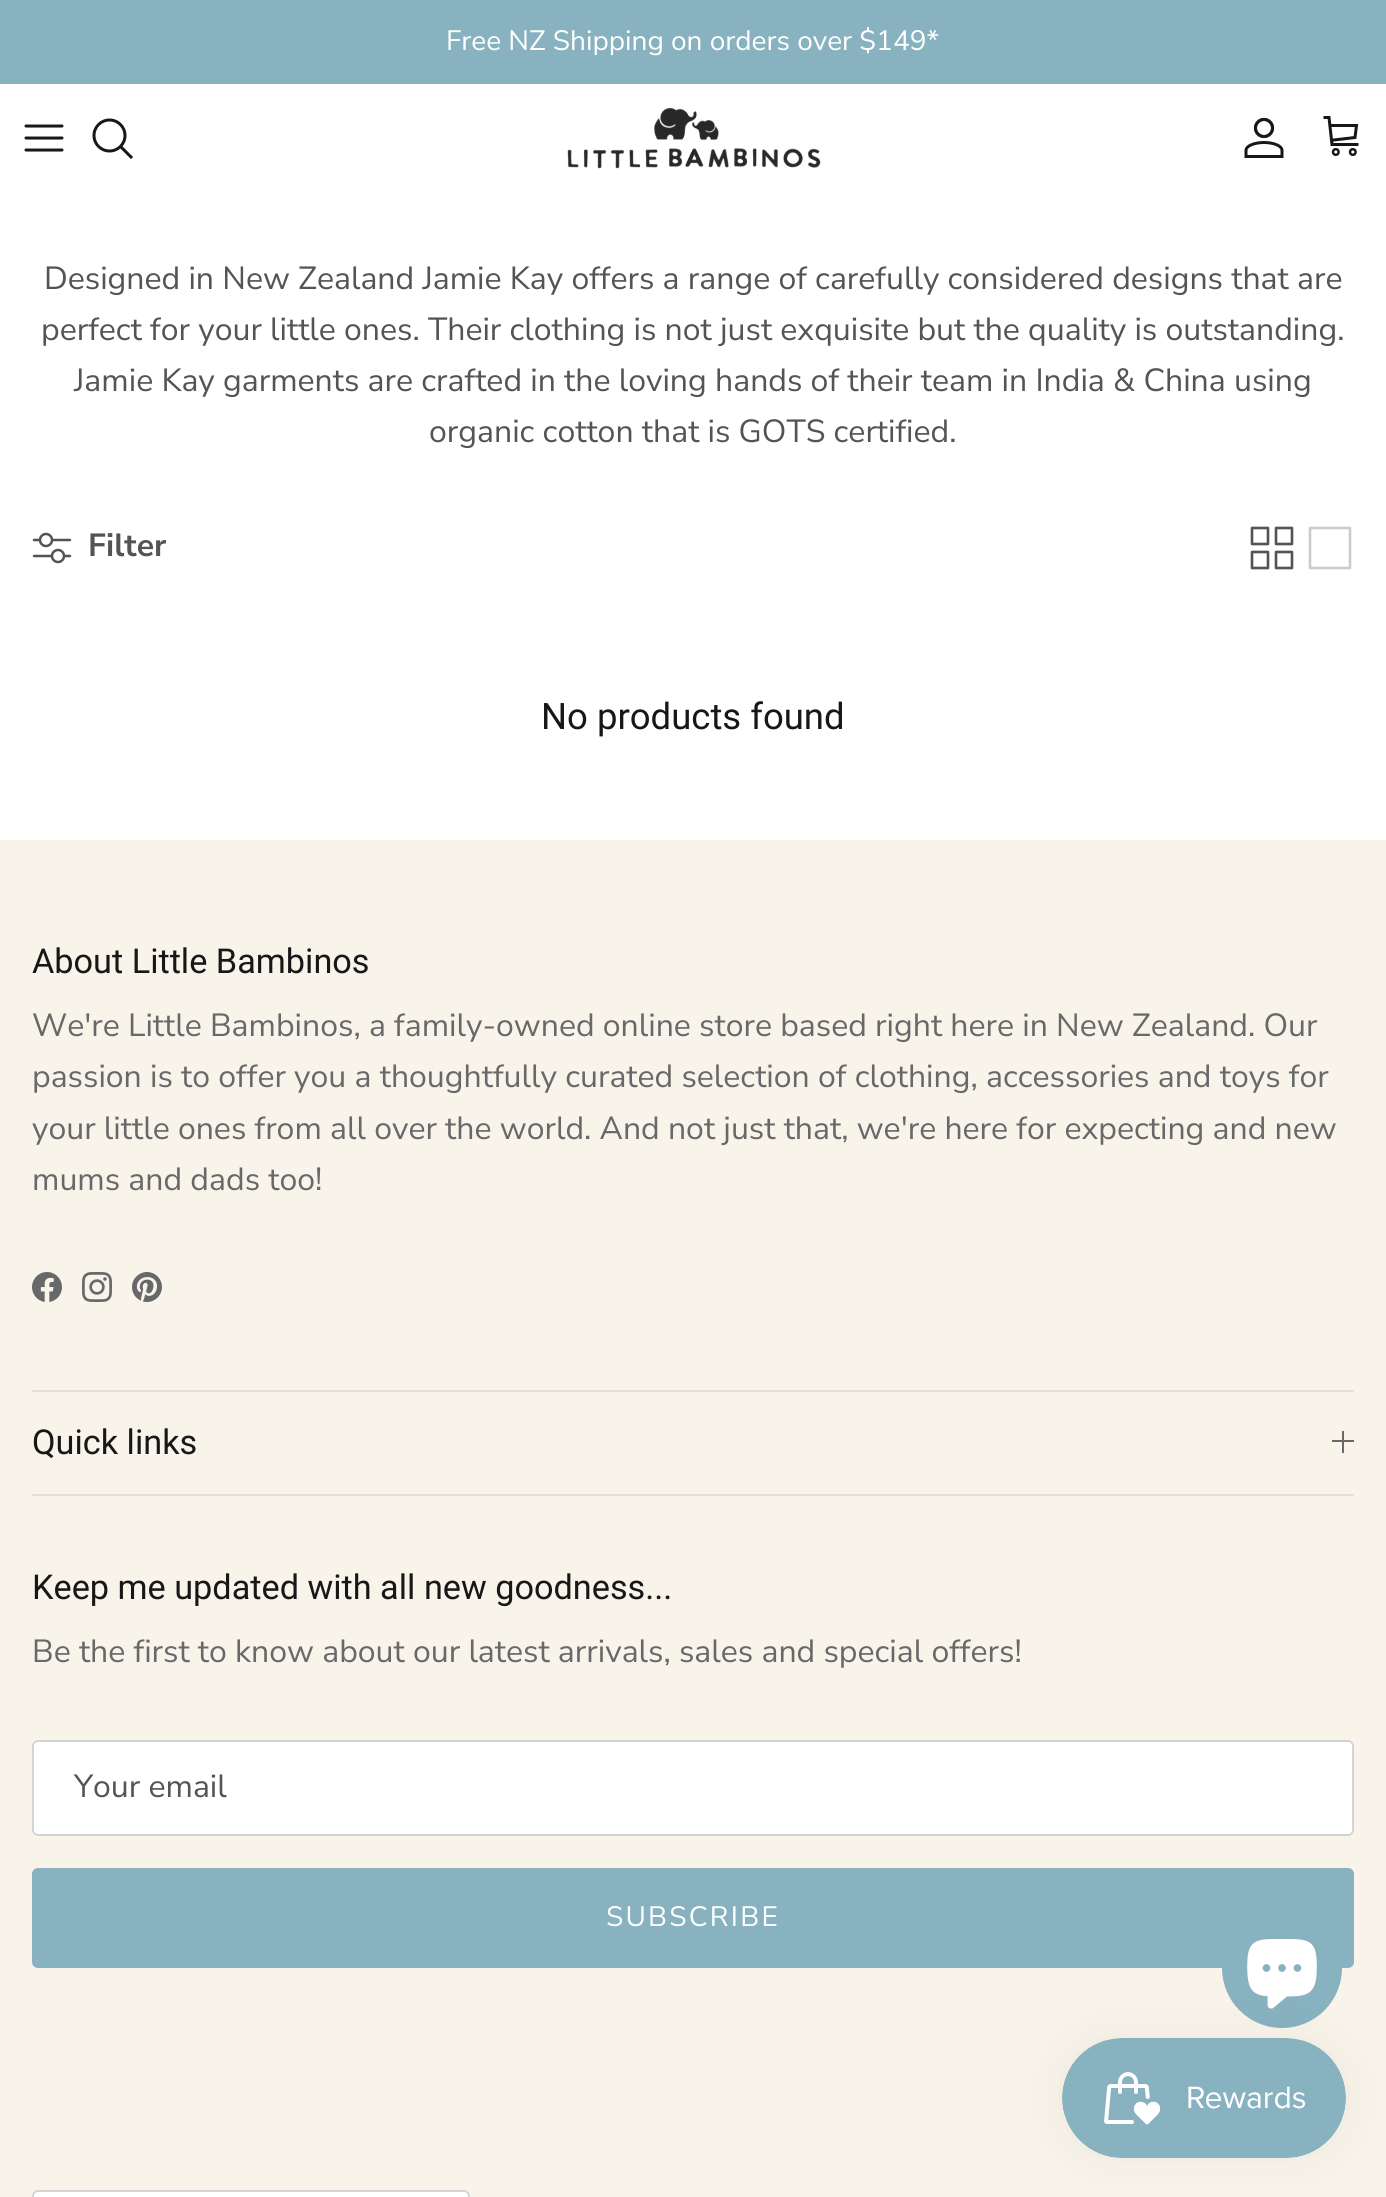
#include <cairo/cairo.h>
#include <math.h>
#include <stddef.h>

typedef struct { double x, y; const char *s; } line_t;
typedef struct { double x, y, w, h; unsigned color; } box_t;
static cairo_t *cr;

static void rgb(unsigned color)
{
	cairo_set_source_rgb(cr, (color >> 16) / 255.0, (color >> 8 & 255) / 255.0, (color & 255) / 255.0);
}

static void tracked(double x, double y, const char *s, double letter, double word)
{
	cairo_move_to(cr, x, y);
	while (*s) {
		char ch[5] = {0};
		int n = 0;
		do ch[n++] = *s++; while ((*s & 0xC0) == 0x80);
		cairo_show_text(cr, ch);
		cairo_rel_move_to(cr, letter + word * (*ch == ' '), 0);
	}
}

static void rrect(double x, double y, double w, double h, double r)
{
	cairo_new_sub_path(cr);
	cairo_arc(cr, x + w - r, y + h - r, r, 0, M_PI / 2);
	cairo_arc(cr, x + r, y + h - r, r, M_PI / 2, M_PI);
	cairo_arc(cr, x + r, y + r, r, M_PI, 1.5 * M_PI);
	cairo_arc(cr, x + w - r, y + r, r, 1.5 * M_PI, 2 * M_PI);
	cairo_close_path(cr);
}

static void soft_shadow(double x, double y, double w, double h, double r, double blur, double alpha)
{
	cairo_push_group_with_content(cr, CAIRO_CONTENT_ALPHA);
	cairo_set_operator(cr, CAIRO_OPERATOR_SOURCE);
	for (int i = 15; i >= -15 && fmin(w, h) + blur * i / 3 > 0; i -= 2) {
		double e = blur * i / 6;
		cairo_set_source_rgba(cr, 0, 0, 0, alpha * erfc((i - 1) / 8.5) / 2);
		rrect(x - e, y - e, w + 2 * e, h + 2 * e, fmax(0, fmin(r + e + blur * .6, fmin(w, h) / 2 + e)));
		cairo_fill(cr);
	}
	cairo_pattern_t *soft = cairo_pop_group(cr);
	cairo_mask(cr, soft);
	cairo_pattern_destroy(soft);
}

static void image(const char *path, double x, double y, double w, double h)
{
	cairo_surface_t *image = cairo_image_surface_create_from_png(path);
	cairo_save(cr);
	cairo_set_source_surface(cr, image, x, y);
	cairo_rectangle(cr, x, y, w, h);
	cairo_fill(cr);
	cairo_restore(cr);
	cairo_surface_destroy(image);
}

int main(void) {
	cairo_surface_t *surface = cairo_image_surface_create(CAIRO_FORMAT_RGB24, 1386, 2197);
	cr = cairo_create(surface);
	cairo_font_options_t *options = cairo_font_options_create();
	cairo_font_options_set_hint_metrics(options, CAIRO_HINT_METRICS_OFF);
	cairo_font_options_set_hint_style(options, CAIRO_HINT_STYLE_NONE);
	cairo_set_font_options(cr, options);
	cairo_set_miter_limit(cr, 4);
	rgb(0xffffff);
	cairo_paint(cr);
	rgb(0x88b2c0);
	cairo_rectangle(cr, 0, 0, 1386, 84);
	cairo_fill(cr);
	cairo_new_path(cr);
	cairo_move_to(cr, 26, 138);
	cairo_line_to(cr, 62, 138);
	cairo_move_to(cr, 26, 126);
	cairo_line_to(cr, 62, 126);
	cairo_move_to(cr, 26, 150);
	cairo_line_to(cr, 62, 150);
	rgb(0x171717);
	cairo_set_line_width(cr, 3);
	cairo_set_line_cap(cr, CAIRO_LINE_CAP_ROUND);
	cairo_set_line_join(cr, CAIRO_LINE_JOIN_ROUND);
	cairo_stroke(cr);
	cairo_arc(cr, 109.5, 135.5, 15.5, 0, 2 * M_PI);
	cairo_set_line_cap(cr, CAIRO_LINE_CAP_BUTT);
	cairo_set_line_join(cr, CAIRO_LINE_JOIN_MITER);
	cairo_stroke(cr);
	cairo_new_path(cr);
	cairo_move_to(cr, 122, 148);
	cairo_line_to(cr, 131, 157);
	cairo_set_line_cap(cr, CAIRO_LINE_CAP_SQUARE);
	cairo_stroke(cr);
	image("img/1.png", 567, 107, 254, 62);
	image("img/2.png", 1244, 118, 40, 40);
	cairo_new_path(cr);
	cairo_move_to(cr, 1325, 117.5);
	cairo_line_to(cr, 1329, 117.5);
	cairo_line_to(cr, 1332, 144.5);
	cairo_line_to(cr, 1357, 144.5);
	cairo_move_to(cr, 1330.5, 125.5);
	cairo_line_to(cr, 1356.5, 125.5);
	cairo_line_to(cr, 1355, 137.5);
	cairo_line_to(cr, 1333.5, 140);
	cairo_stroke(cr);
	cairo_arc(cr, 1335.8, 152, 2.8, 0, 2 * M_PI);
	cairo_set_line_width(cr, 2.5);
	cairo_set_line_cap(cr, CAIRO_LINE_CAP_BUTT);
	cairo_stroke(cr);
	cairo_arc(cr, 1352.8, 152, 2.8, 0, 2 * M_PI);
	cairo_stroke(cr);
	cairo_new_path(cr);
	cairo_move_to(cr, 34, 540);
	cairo_line_to(cr, 70, 540);
	cairo_move_to(cr, 34, 556);
	cairo_line_to(cr, 70, 556);
	rgb(0x555353);
	cairo_set_line_cap(cr, CAIRO_LINE_CAP_ROUND);
	cairo_set_line_join(cr, CAIRO_LINE_JOIN_ROUND);
	cairo_stroke(cr);
	rgb(0xffffff);
	cairo_arc(cr, 46, 540, 6, 0, 2 * M_PI);
	cairo_fill_preserve(cr);
	rgb(0x555353);
	cairo_set_line_cap(cr, CAIRO_LINE_CAP_BUTT);
	cairo_set_line_join(cr, CAIRO_LINE_JOIN_MITER);
	cairo_stroke(cr);
	rgb(0xffffff);
	cairo_arc(cr, 58, 556, 6, 0, 2 * M_PI);
	cairo_fill_preserve(cr);
	rgb(0x555353);
	cairo_stroke(cr);
	cairo_new_path(cr);
	cairo_move_to(cr, 1252, 528);
	cairo_line_to(cr, 1268, 528);
	cairo_line_to(cr, 1268, 544);
	cairo_line_to(cr, 1252, 544);
	cairo_line_to(cr, 1252, 528);
	cairo_move_to(cr, 1276, 528);
	cairo_line_to(cr, 1292, 528);
	cairo_line_to(cr, 1292, 544);
	cairo_line_to(cr, 1276, 544);
	cairo_line_to(cr, 1276, 528);
	cairo_move_to(cr, 1276, 552);
	cairo_line_to(cr, 1292, 552);
	cairo_line_to(cr, 1292, 568);
	cairo_line_to(cr, 1276, 568);
	cairo_line_to(cr, 1276, 552);
	cairo_move_to(cr, 1252, 552);
	cairo_line_to(cr, 1268, 552);
	cairo_line_to(cr, 1268, 568);
	cairo_line_to(cr, 1252, 568);
	cairo_line_to(cr, 1252, 552);
	cairo_set_line_width(cr, 2.6);
	cairo_set_line_cap(cr, CAIRO_LINE_CAP_ROUND);
	cairo_set_line_join(cr, CAIRO_LINE_JOIN_ROUND);
	cairo_stroke(cr);
	cairo_new_path(cr);
	cairo_move_to(cr, 1310, 528);
	cairo_line_to(cr, 1350, 528);
	cairo_line_to(cr, 1350, 568);
	cairo_line_to(cr, 1310, 568);
	cairo_line_to(cr, 1310, 528);
	rgb(0xcccbcb);
	cairo_stroke(cr);
	rgb(0xf8f4ea);
	cairo_rectangle(cr, 0, 840, 1386, 1357);
	cairo_fill(cr);
	image("img/3.png", 32, 1272, 30, 30);
	image("img/4.png", 82, 1272, 30, 30);
	image("img/5.png", 132, 1272, 30, 30);
	{
		static const box_t items[] = {
			{32, 1390, 1322, 2, 0xe2dfd7},
			{32, 1494, 1322, 2, 0xe2dfd7},
			{1342, 1431, 2, 22, 0x676869},
			{1332, 1440, 22, 2, 0x676869},
		};
		for (size_t i = 0; i < sizeof items / sizeof *items; i++) {
			rgb(items[i].color);
			cairo_rectangle(cr, items[i].x, items[i].y, items[i].w, items[i].h);
			cairo_fill(cr);
		}
	}
	rgb(0xffffff);
	rrect(33, 1741, 1320, 94, 5);
	cairo_fill_preserve(cr);
	rgb(0xd5d4d4);
	cairo_set_line_width(cr, 2);
	cairo_set_line_cap(cr, CAIRO_LINE_CAP_BUTT);
	cairo_set_line_join(cr, CAIRO_LINE_JOIN_MITER);
	cairo_stroke(cr);
	rgb(0x88b2c0);
	rrect(33, 1869, 1320, 98, 5);
	cairo_fill_preserve(cr);
	cairo_stroke(cr);
	rgb(0xffffff);
	rrect(33, 2191, 436, 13, 5);
	cairo_fill_preserve(cr);
	rgb(0xd5d4d4);
	cairo_stroke(cr);
	rgb(0x88b2c0);
	cairo_arc(cr, 1282, 1968, 60, 0, 2 * M_PI);
	cairo_fill(cr);
	image("img/6.png", 1247, 1939, 70, 70);
	rgb(0x000000);
	soft_shadow(1062, 2038, 284, 120, 60, 25, 0.05);
	image("img/7.png", 1062, 2038, 284, 120);
	cairo_select_font_face(cr, "Nunito Sans", CAIRO_FONT_SLANT_NORMAL, CAIRO_FONT_WEIGHT_NORMAL);
	cairo_set_font_size(cr, 28);
	rgb(0xffffff);
	cairo_move_to(cr, 446, 50);
	cairo_show_text(cr, "Free NZ Shipping on orders over $149*");
	cairo_set_font_size(cr, 32);
	rgb(0x555353);
	{
		static const line_t items[] = {
			{44, 289, "Designed in New Zealand Jamie Kay offers a range of carefully considered designs that are"},
			{41, 340, "perfect for your little ones. Their clothing is not just exquisite but the quality is outstanding."},
			{74, 391, "Jamie Kay garments are crafted in the loving hands of their team in India & China using"},
			{429, 442, "organic cotton that is GOTS certified."},
		};
		for (size_t i = 0; i < sizeof items / sizeof *items; i++) {
			cairo_move_to(cr, items[i].x, items[i].y);
			cairo_show_text(cr, items[i].s);
		}
	}
	cairo_save(cr);
	cairo_rectangle(cr, 32, 500, 134, 96);
	cairo_clip(cr);
	cairo_select_font_face(cr, "Nunito Sans", CAIRO_FONT_SLANT_NORMAL, CAIRO_FONT_WEIGHT_BOLD);
	cairo_move_to(cr, 88, 556);
	cairo_show_text(cr, "Filter");
	cairo_restore(cr);
	cairo_select_font_face(cr, "Roboto", CAIRO_FONT_SLANT_NORMAL, CAIRO_FONT_WEIGHT_NORMAL);
	cairo_set_font_size(cr, 36.5);
	rgb(0x171717);
	cairo_move_to(cr, 541, 729);
	cairo_show_text(cr, "No products found");
	cairo_set_font_size(cr, 34.25);
	cairo_move_to(cr, 32, 973);
	cairo_show_text(cr, "About Little Bambinos");
	cairo_select_font_face(cr, "Nunito Sans", CAIRO_FONT_SLANT_NORMAL, CAIRO_FONT_WEIGHT_NORMAL);
	cairo_set_font_size(cr, 32);
	rgb(0x676869);
	{
		static const line_t items[] = {
			{32, 1036, "We're Little Bambinos, a family-owned online store based right here in New Zealand. Our"},
			{32, 1087, "passion is to offer you a thoughtfully curated selection of clothing, accessories and toys for"},
			{32, 1139, "your little ones from all over the world. And not just that, we're here for expecting and new"},
			{32, 1190, "mums and dads too!"},
		};
		for (size_t i = 0; i < sizeof items / sizeof *items; i++) {
			cairo_move_to(cr, items[i].x, items[i].y);
			cairo_show_text(cr, items[i].s);
		}
	}
	cairo_select_font_face(cr, "Roboto", CAIRO_FONT_SLANT_NORMAL, CAIRO_FONT_WEIGHT_NORMAL);
	cairo_set_font_size(cr, 34.25);
	rgb(0x171717);
	cairo_move_to(cr, 32, 1454);
	cairo_show_text(cr, "Quick links");
	cairo_move_to(cr, 32, 1599);
	cairo_show_text(cr, "Keep me updated with all new goodness...");
	cairo_select_font_face(cr, "Nunito Sans", CAIRO_FONT_SLANT_NORMAL, CAIRO_FONT_WEIGHT_NORMAL);
	cairo_set_font_size(cr, 32);
	rgb(0x676869);
	cairo_move_to(cr, 32, 1662);
	cairo_show_text(cr, "Be the first to know about our latest arrivals, sales and special offers!");
	rgb(0x555353);
	cairo_move_to(cr, 74, 1797);
	cairo_show_text(cr, "Your email");
	cairo_set_font_size(cr, 28);
	rgb(0xffffff);
	tracked(606, 1926, "SUBSCRIBE", 2.25, 0);
	cairo_surface_write_to_png(surface, "page.png");
	cairo_font_options_destroy(options);
	cairo_destroy(cr);
	cairo_surface_destroy(surface);
	return 0;
}
